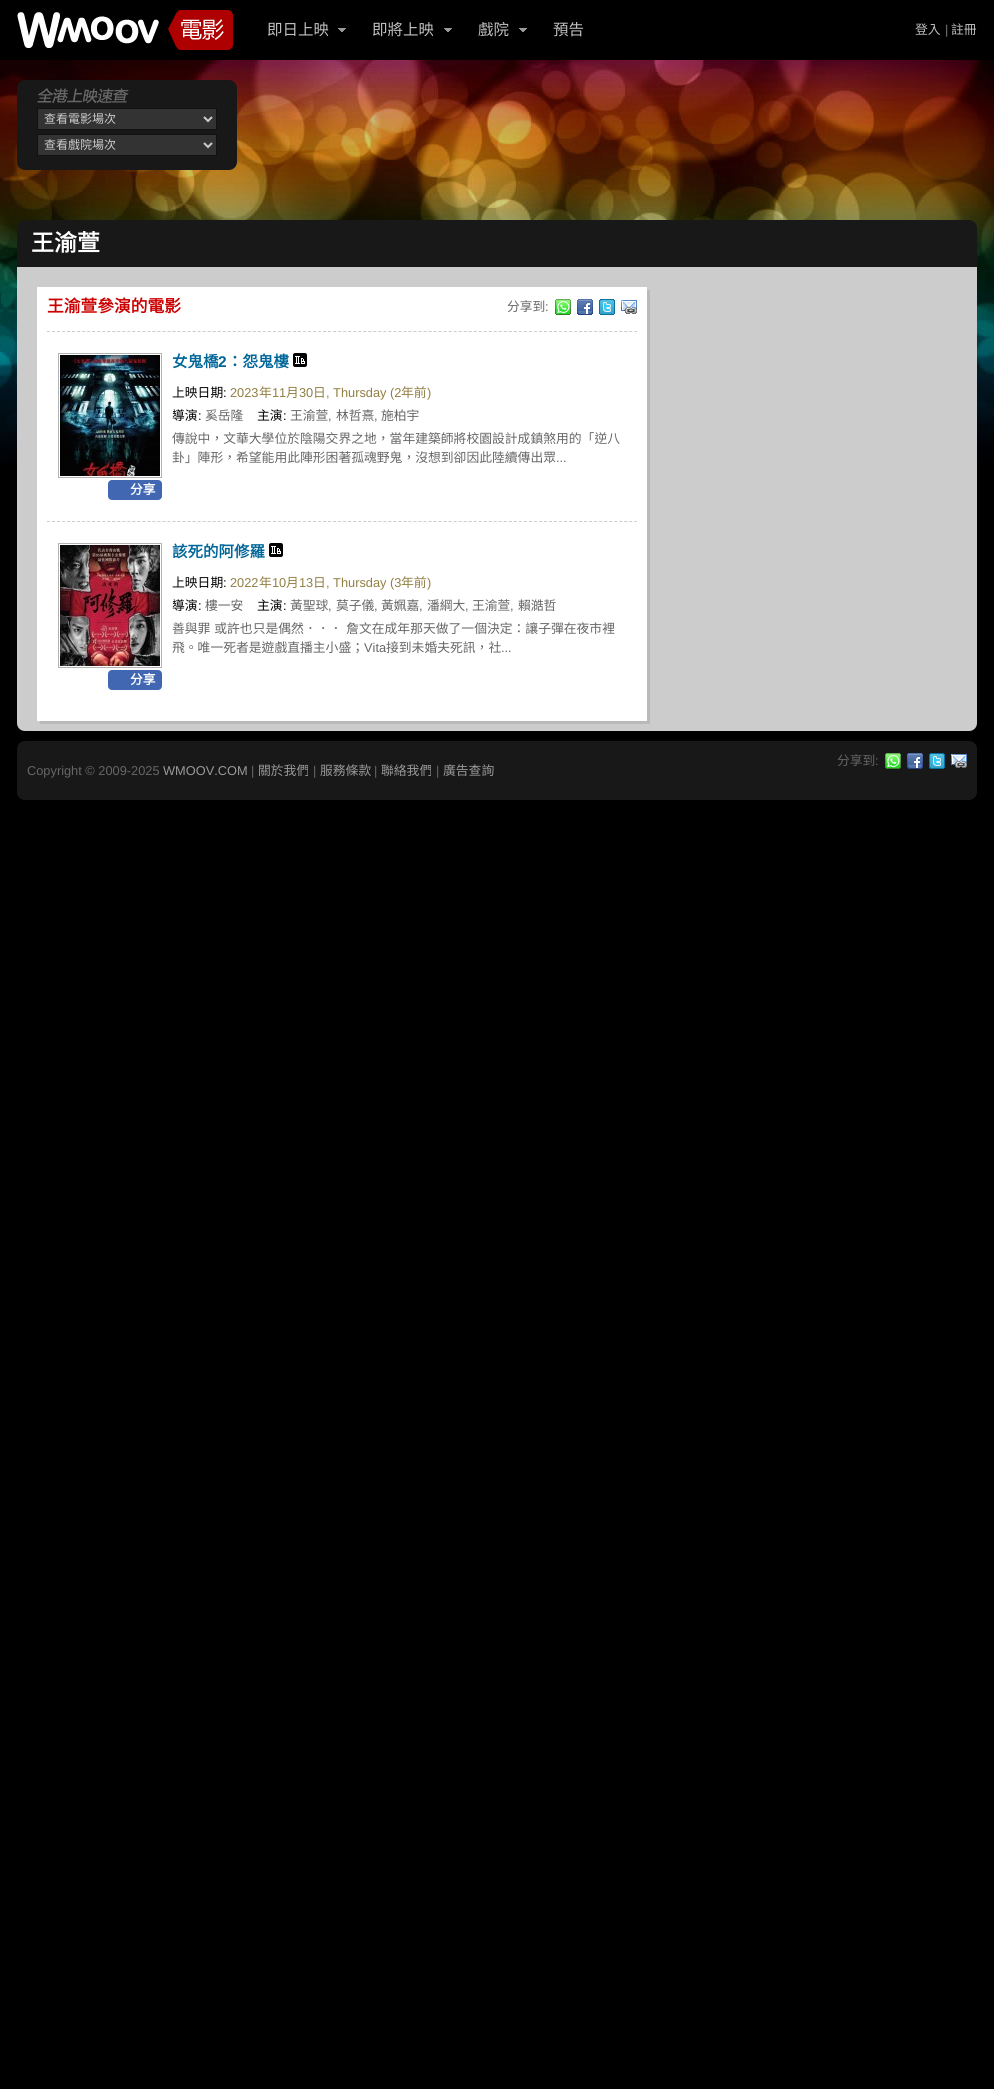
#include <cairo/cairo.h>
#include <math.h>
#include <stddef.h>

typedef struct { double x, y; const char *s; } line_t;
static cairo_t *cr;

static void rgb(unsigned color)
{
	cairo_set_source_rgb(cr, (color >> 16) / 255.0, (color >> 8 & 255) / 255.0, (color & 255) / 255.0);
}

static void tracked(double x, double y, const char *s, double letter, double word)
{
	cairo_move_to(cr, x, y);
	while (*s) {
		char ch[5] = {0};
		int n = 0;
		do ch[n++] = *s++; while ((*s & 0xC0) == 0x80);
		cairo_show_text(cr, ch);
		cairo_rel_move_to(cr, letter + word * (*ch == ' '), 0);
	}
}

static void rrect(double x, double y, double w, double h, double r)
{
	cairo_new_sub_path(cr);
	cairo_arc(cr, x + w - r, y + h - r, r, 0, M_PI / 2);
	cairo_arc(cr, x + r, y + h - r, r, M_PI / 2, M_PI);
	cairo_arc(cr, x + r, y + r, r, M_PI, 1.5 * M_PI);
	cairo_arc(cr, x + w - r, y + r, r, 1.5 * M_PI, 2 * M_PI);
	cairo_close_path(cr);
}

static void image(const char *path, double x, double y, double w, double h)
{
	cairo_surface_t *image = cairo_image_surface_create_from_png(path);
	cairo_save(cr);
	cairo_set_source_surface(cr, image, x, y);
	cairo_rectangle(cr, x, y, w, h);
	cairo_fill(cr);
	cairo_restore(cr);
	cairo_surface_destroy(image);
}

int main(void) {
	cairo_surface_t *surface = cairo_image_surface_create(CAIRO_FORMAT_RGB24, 994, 2089);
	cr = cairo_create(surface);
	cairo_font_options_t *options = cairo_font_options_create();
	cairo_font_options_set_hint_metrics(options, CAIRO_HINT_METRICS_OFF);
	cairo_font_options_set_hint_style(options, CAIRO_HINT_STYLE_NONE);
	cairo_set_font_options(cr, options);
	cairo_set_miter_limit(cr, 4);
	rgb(0x000000);
	cairo_paint(cr);
	image("img/1.png", 0, 60, 994, 404);
	image("img/2.png", 17, 10, 216, 40);
	image("img/3.png", 338, 28, 8, 4);
	image("img/3.png", 444, 28, 8, 4);
	image("img/3.png", 519, 28, 8, 4);
	rgb(0x181818);
	rrect(17, 80, 220, 90, 8);
	cairo_fill(cr);
	image("img/4.png", 37, 88, 92, 16);
	rgb(0x333333);
	cairo_rectangle(cr, 37.5, 108.5, 179, 21);
	cairo_fill_preserve(cr);
	rgb(0x111111);
	cairo_set_line_width(cr, 1);
	cairo_stroke(cr);
	cairo_new_path(cr);
	cairo_move_to(cr, 204, 117);
	cairo_line_to(cr, 208, 121);
	cairo_line_to(cr, 212, 117);
	rgb(0xcccccc);
	cairo_set_line_width(cr, 2);
	cairo_stroke(cr);
	rgb(0x333333);
	cairo_rectangle(cr, 37.5, 134.5, 179, 21);
	cairo_fill_preserve(cr);
	rgb(0x111111);
	cairo_set_line_width(cr, 1);
	cairo_stroke(cr);
	cairo_new_path(cr);
	cairo_move_to(cr, 204, 143);
	cairo_line_to(cr, 208, 147);
	cairo_line_to(cr, 212, 143);
	rgb(0xcccccc);
	cairo_set_line_width(cr, 2);
	cairo_stroke(cr);
	rgb(0x181818);
	rrect(17, 220, 960, 511, 8);
	cairo_fill(cr);
	rgb(0xcccccc);
	cairo_new_path(cr);
	cairo_move_to(cr, 17, 267);
	cairo_line_to(cr, 977, 267);
	cairo_line_to(cr, 977, 723);
	cairo_curve_to(cr, 977, 727.5, 973.5, 731, 969, 731);
	cairo_line_to(cr, 25, 731);
	cairo_curve_to(cr, 20.5, 731, 17, 727.5, 17, 723);
	cairo_close_path(cr);
	cairo_fill(cr);
	rgb(0xb9b9b9);
	cairo_new_path(cr);
	cairo_move_to(cr, 40, 721);
	cairo_line_to(cr, 40, 724);
	cairo_line_to(cr, 650, 724);
	cairo_line_to(cr, 650, 290);
	cairo_line_to(cr, 647, 290);
	cairo_line_to(cr, 647, 721);
	cairo_close_path(cr);
	cairo_fill(cr);
	rgb(0xffffff);
	cairo_rectangle(cr, 37, 287, 610, 434);
	cairo_fill(cr);
	image("img/5.png", 555, 299, 16, 16);
	image("img/6.png", 577, 299, 16, 16);
	image("img/7.png", 599, 299, 16, 16);
	image("img/8.png", 621, 300, 16, 14);
	cairo_new_path(cr);
	cairo_move_to(cr, 47, 331.5);
	cairo_line_to(cr, 637, 331.5);
	rgb(0xcccccc);
	cairo_set_line_width(cr, 1);
	cairo_set_dash(cr, (double[]){3, 2.02}, 2, 0);
	cairo_stroke(cr);
	image("img/9.png", 293, 353, 14, 14);
	cairo_rectangle(cr, 58.5, 353.5, 103, 124);
	rgb(0xb3b3b3);
	cairo_set_dash(cr, NULL, 0, 0);
	cairo_stroke(cr);
	image("img/10.png", 60, 355, 100, 121);
	rgb(0x4267b2);
	rrect(108, 480, 54, 20, 4);
	cairo_fill(cr);
	cairo_new_path(cr);
	cairo_move_to(cr, 47, 521.5);
	cairo_line_to(cr, 637, 521.5);
	rgb(0xcccccc);
	cairo_set_dash(cr, (double[]){3, 2.02}, 2, 0);
	cairo_stroke(cr);
	image("img/9.png", 269, 543, 14, 14);
	cairo_rectangle(cr, 58.5, 543.5, 103, 124);
	rgb(0xb3b3b3);
	cairo_set_dash(cr, NULL, 0, 0);
	cairo_stroke(cr);
	image("img/11.png", 60, 545, 100, 121);
	rgb(0x4267b2);
	rrect(108, 670, 54, 20, 4);
	cairo_fill(cr);
	rgb(0x181818);
	rrect(17, 741, 960, 59, 8);
	cairo_fill(cr);
	image("img/12.png", 885, 753, 16, 16);
	image("img/13.png", 907, 753, 16, 16);
	image("img/14.png", 929, 753, 16, 16);
	image("img/15.png", 951, 754, 16, 14);
	cairo_select_font_face(cr, "Noto Sans CJK HK", CAIRO_FONT_SLANT_NORMAL, CAIRO_FONT_WEIGHT_NORMAL);
	cairo_set_font_size(cr, 15.5);
	rgb(0xc1bfbf);
	{
		static const line_t items[] = {
			{267, 35, "即日上映"},
			{372, 35, "即將上映"},
			{478, 35, "戲院"},
			{553, 35, "預告"},
		};
		for (size_t i = 0; i < sizeof items / sizeof *items; i++) {
			cairo_move_to(cr, items[i].x, items[i].y);
			cairo_show_text(cr, items[i].s);
		}
	}
	cairo_set_font_size(cr, 12.8);
	cairo_move_to(cr, 915, 34);
	cairo_show_text(cr, "登入");
	cairo_select_font_face(cr, "Liberation Sans", CAIRO_FONT_SLANT_NORMAL, CAIRO_FONT_WEIGHT_NORMAL);
	rgb(0x777777);
	cairo_move_to(cr, 945, 34);
	cairo_show_text(cr, "|");
	cairo_select_font_face(cr, "Noto Sans CJK HK", CAIRO_FONT_SLANT_NORMAL, CAIRO_FONT_WEIGHT_NORMAL);
	rgb(0xc1bfbf);
	cairo_move_to(cr, 951, 34);
	cairo_show_text(cr, "註冊");
	cairo_set_font_size(cr, 12);
	rgb(0xcccccc);
	cairo_move_to(cr, 44, 123);
	cairo_show_text(cr, "查看電影場次");
	cairo_move_to(cr, 44, 149);
	cairo_show_text(cr, "查看戲院場次");
	cairo_select_font_face(cr, "Noto Sans CJK HK", CAIRO_FONT_SLANT_NORMAL, CAIRO_FONT_WEIGHT_BOLD);
	cairo_set_font_size(cr, 23);
	rgb(0xffffff);
	cairo_move_to(cr, 31, 251);
	cairo_show_text(cr, "王渝萱");
	cairo_set_font_size(cr, 16.75);
	rgb(0xcc0000);
	cairo_move_to(cr, 47, 312);
	cairo_show_text(cr, "王渝萱參演的電影");
	cairo_select_font_face(cr, "Noto Sans CJK HK", CAIRO_FONT_SLANT_NORMAL, CAIRO_FONT_WEIGHT_NORMAL);
	cairo_set_font_size(cr, 12.8);
	rgb(0x666666);
	cairo_move_to(cr, 507, 311);
	cairo_show_text(cr, "分享到");
	cairo_select_font_face(cr, "Liberation Sans", CAIRO_FONT_SLANT_NORMAL, CAIRO_FONT_WEIGHT_NORMAL);
	cairo_move_to(cr, 545, 311);
	cairo_show_text(cr, ":");
	cairo_select_font_face(cr, "Noto Sans CJK HK", CAIRO_FONT_SLANT_NORMAL, CAIRO_FONT_WEIGHT_BOLD);
	cairo_set_font_size(cr, 15.5);
	rgb(0x006699);
	cairo_move_to(cr, 172, 367);
	cairo_show_text(cr, "女鬼橋");
	cairo_select_font_face(cr, "Liberation Sans", CAIRO_FONT_SLANT_NORMAL, CAIRO_FONT_WEIGHT_BOLD);
	cairo_move_to(cr, 218, 367);
	cairo_show_text(cr, "2");
	cairo_select_font_face(cr, "Noto Sans CJK HK", CAIRO_FONT_SLANT_NORMAL, CAIRO_FONT_WEIGHT_BOLD);
	cairo_move_to(cr, 227, 367);
	cairo_show_text(cr, "：怨鬼樓");
	cairo_select_font_face(cr, "Noto Sans CJK HK", CAIRO_FONT_SLANT_NORMAL, CAIRO_FONT_WEIGHT_NORMAL);
	cairo_set_font_size(cr, 12.8);
	rgb(0x000000);
	cairo_move_to(cr, 172, 397);
	cairo_show_text(cr, "上映日期");
	cairo_select_font_face(cr, "Liberation Sans", CAIRO_FONT_SLANT_NORMAL, CAIRO_FONT_WEIGHT_NORMAL);
	cairo_move_to(cr, 223, 397);
	cairo_show_text(cr, ":");
	rgb(0x917e42);
	cairo_move_to(cr, 230, 397);
	cairo_show_text(cr, "2023");
	cairo_select_font_face(cr, "Noto Sans CJK HK", CAIRO_FONT_SLANT_NORMAL, CAIRO_FONT_WEIGHT_NORMAL);
	cairo_move_to(cr, 259, 397);
	cairo_show_text(cr, "年");
	cairo_select_font_face(cr, "Liberation Sans", CAIRO_FONT_SLANT_NORMAL, CAIRO_FONT_WEIGHT_NORMAL);
	cairo_move_to(cr, 272, 397);
	cairo_show_text(cr, "11");
	cairo_select_font_face(cr, "Noto Sans CJK HK", CAIRO_FONT_SLANT_NORMAL, CAIRO_FONT_WEIGHT_NORMAL);
	cairo_move_to(cr, 286, 397);
	cairo_show_text(cr, "月");
	cairo_select_font_face(cr, "Liberation Sans", CAIRO_FONT_SLANT_NORMAL, CAIRO_FONT_WEIGHT_NORMAL);
	cairo_move_to(cr, 299, 397);
	cairo_show_text(cr, "30");
	cairo_select_font_face(cr, "Noto Sans CJK HK", CAIRO_FONT_SLANT_NORMAL, CAIRO_FONT_WEIGHT_NORMAL);
	cairo_move_to(cr, 313, 397);
	cairo_show_text(cr, "日");
	cairo_select_font_face(cr, "Liberation Sans", CAIRO_FONT_SLANT_NORMAL, CAIRO_FONT_WEIGHT_NORMAL);
	cairo_move_to(cr, 326, 397);
	cairo_show_text(cr, ", Thursday (2");
	cairo_select_font_face(cr, "Noto Sans CJK HK", CAIRO_FONT_SLANT_NORMAL, CAIRO_FONT_WEIGHT_NORMAL);
	cairo_move_to(cr, 401, 397);
	cairo_show_text(cr, "年前");
	cairo_select_font_face(cr, "Liberation Sans", CAIRO_FONT_SLANT_NORMAL, CAIRO_FONT_WEIGHT_NORMAL);
	cairo_move_to(cr, 427, 397);
	cairo_show_text(cr, ")");
	cairo_select_font_face(cr, "Noto Sans CJK HK", CAIRO_FONT_SLANT_NORMAL, CAIRO_FONT_WEIGHT_NORMAL);
	rgb(0x000000);
	cairo_move_to(cr, 172, 420);
	cairo_show_text(cr, "導演");
	cairo_select_font_face(cr, "Liberation Sans", CAIRO_FONT_SLANT_NORMAL, CAIRO_FONT_WEIGHT_NORMAL);
	cairo_move_to(cr, 198, 420);
	cairo_show_text(cr, ":");
	cairo_select_font_face(cr, "Noto Sans CJK HK", CAIRO_FONT_SLANT_NORMAL, CAIRO_FONT_WEIGHT_NORMAL);
	rgb(0x666666);
	cairo_move_to(cr, 205, 420);
	cairo_show_text(cr, "奚岳隆");
	rgb(0x000000);
	cairo_move_to(cr, 257, 420);
	cairo_show_text(cr, "主演");
	cairo_select_font_face(cr, "Liberation Sans", CAIRO_FONT_SLANT_NORMAL, CAIRO_FONT_WEIGHT_NORMAL);
	cairo_move_to(cr, 283, 420);
	cairo_show_text(cr, ":");
	cairo_select_font_face(cr, "Noto Sans CJK HK", CAIRO_FONT_SLANT_NORMAL, CAIRO_FONT_WEIGHT_NORMAL);
	rgb(0x666666);
	cairo_move_to(cr, 290, 420);
	cairo_show_text(cr, "王渝萱");
	cairo_select_font_face(cr, "Liberation Sans", CAIRO_FONT_SLANT_NORMAL, CAIRO_FONT_WEIGHT_NORMAL);
	cairo_move_to(cr, 328, 420);
	cairo_show_text(cr, ",");
	cairo_select_font_face(cr, "Noto Sans CJK HK", CAIRO_FONT_SLANT_NORMAL, CAIRO_FONT_WEIGHT_NORMAL);
	cairo_move_to(cr, 336, 420);
	cairo_show_text(cr, "林哲熹");
	cairo_select_font_face(cr, "Liberation Sans", CAIRO_FONT_SLANT_NORMAL, CAIRO_FONT_WEIGHT_NORMAL);
	cairo_move_to(cr, 374, 420);
	cairo_show_text(cr, ",");
	cairo_select_font_face(cr, "Noto Sans CJK HK", CAIRO_FONT_SLANT_NORMAL, CAIRO_FONT_WEIGHT_NORMAL);
	{
		static const line_t items[] = {
			{381, 420, "施柏宇"},
			{172, 443, "傳說中，文華大學位於陰陽交界之地，當年建築師將校園設計成鎮煞用的「逆八"},
			{172, 462, "卦」陣形，希望能用此陣形困著孤魂野鬼，沒想到卻因此陸續傳出眾"},
		};
		for (size_t i = 0; i < sizeof items / sizeof *items; i++) {
			cairo_move_to(cr, items[i].x, items[i].y);
			cairo_show_text(cr, items[i].s);
		}
	}
	cairo_select_font_face(cr, "Liberation Sans", CAIRO_FONT_SLANT_NORMAL, CAIRO_FONT_WEIGHT_NORMAL);
	cairo_move_to(cr, 556, 462);
	cairo_show_text(cr, "...");
	cairo_select_font_face(cr, "Noto Sans CJK HK", CAIRO_FONT_SLANT_NORMAL, CAIRO_FONT_WEIGHT_BOLD);
	rgb(0xffffff);
	cairo_move_to(cr, 130, 494);
	cairo_show_text(cr, "分享");
	cairo_set_font_size(cr, 15.5);
	rgb(0x006699);
	cairo_move_to(cr, 172, 557);
	cairo_show_text(cr, "該死的阿修羅");
	cairo_select_font_face(cr, "Noto Sans CJK HK", CAIRO_FONT_SLANT_NORMAL, CAIRO_FONT_WEIGHT_NORMAL);
	cairo_set_font_size(cr, 12.8);
	rgb(0x000000);
	cairo_move_to(cr, 172, 587);
	cairo_show_text(cr, "上映日期");
	cairo_select_font_face(cr, "Liberation Sans", CAIRO_FONT_SLANT_NORMAL, CAIRO_FONT_WEIGHT_NORMAL);
	cairo_move_to(cr, 223, 587);
	cairo_show_text(cr, ":");
	rgb(0x917e42);
	cairo_move_to(cr, 230, 587);
	cairo_show_text(cr, "2022");
	cairo_select_font_face(cr, "Noto Sans CJK HK", CAIRO_FONT_SLANT_NORMAL, CAIRO_FONT_WEIGHT_NORMAL);
	cairo_move_to(cr, 259, 587);
	cairo_show_text(cr, "年");
	cairo_select_font_face(cr, "Liberation Sans", CAIRO_FONT_SLANT_NORMAL, CAIRO_FONT_WEIGHT_NORMAL);
	cairo_move_to(cr, 272, 587);
	cairo_show_text(cr, "10");
	cairo_select_font_face(cr, "Noto Sans CJK HK", CAIRO_FONT_SLANT_NORMAL, CAIRO_FONT_WEIGHT_NORMAL);
	cairo_move_to(cr, 286, 587);
	cairo_show_text(cr, "月");
	cairo_select_font_face(cr, "Liberation Sans", CAIRO_FONT_SLANT_NORMAL, CAIRO_FONT_WEIGHT_NORMAL);
	cairo_move_to(cr, 299, 587);
	cairo_show_text(cr, "13");
	cairo_select_font_face(cr, "Noto Sans CJK HK", CAIRO_FONT_SLANT_NORMAL, CAIRO_FONT_WEIGHT_NORMAL);
	cairo_move_to(cr, 313, 587);
	cairo_show_text(cr, "日");
	cairo_select_font_face(cr, "Liberation Sans", CAIRO_FONT_SLANT_NORMAL, CAIRO_FONT_WEIGHT_NORMAL);
	cairo_move_to(cr, 326, 587);
	cairo_show_text(cr, ", Thursday (3");
	cairo_select_font_face(cr, "Noto Sans CJK HK", CAIRO_FONT_SLANT_NORMAL, CAIRO_FONT_WEIGHT_NORMAL);
	cairo_move_to(cr, 401, 587);
	cairo_show_text(cr, "年前");
	cairo_select_font_face(cr, "Liberation Sans", CAIRO_FONT_SLANT_NORMAL, CAIRO_FONT_WEIGHT_NORMAL);
	cairo_move_to(cr, 427, 587);
	cairo_show_text(cr, ")");
	cairo_select_font_face(cr, "Noto Sans CJK HK", CAIRO_FONT_SLANT_NORMAL, CAIRO_FONT_WEIGHT_NORMAL);
	rgb(0x000000);
	cairo_move_to(cr, 172, 610);
	cairo_show_text(cr, "導演");
	cairo_select_font_face(cr, "Liberation Sans", CAIRO_FONT_SLANT_NORMAL, CAIRO_FONT_WEIGHT_NORMAL);
	cairo_move_to(cr, 198, 610);
	cairo_show_text(cr, ":");
	cairo_select_font_face(cr, "Noto Sans CJK HK", CAIRO_FONT_SLANT_NORMAL, CAIRO_FONT_WEIGHT_NORMAL);
	rgb(0x666666);
	cairo_move_to(cr, 205, 610);
	cairo_show_text(cr, "樓一安");
	rgb(0x000000);
	cairo_move_to(cr, 257, 610);
	cairo_show_text(cr, "主演");
	cairo_select_font_face(cr, "Liberation Sans", CAIRO_FONT_SLANT_NORMAL, CAIRO_FONT_WEIGHT_NORMAL);
	cairo_move_to(cr, 283, 610);
	cairo_show_text(cr, ":");
	cairo_select_font_face(cr, "Noto Sans CJK HK", CAIRO_FONT_SLANT_NORMAL, CAIRO_FONT_WEIGHT_NORMAL);
	rgb(0x666666);
	cairo_move_to(cr, 290, 610);
	cairo_show_text(cr, "黃聖球");
	cairo_select_font_face(cr, "Liberation Sans", CAIRO_FONT_SLANT_NORMAL, CAIRO_FONT_WEIGHT_NORMAL);
	cairo_move_to(cr, 328, 610);
	cairo_show_text(cr, ",");
	cairo_select_font_face(cr, "Noto Sans CJK HK", CAIRO_FONT_SLANT_NORMAL, CAIRO_FONT_WEIGHT_NORMAL);
	cairo_move_to(cr, 336, 610);
	cairo_show_text(cr, "莫子儀");
	cairo_select_font_face(cr, "Liberation Sans", CAIRO_FONT_SLANT_NORMAL, CAIRO_FONT_WEIGHT_NORMAL);
	cairo_move_to(cr, 374, 610);
	cairo_show_text(cr, ",");
	cairo_select_font_face(cr, "Noto Sans CJK HK", CAIRO_FONT_SLANT_NORMAL, CAIRO_FONT_WEIGHT_NORMAL);
	cairo_move_to(cr, 381, 610);
	cairo_show_text(cr, "黃姵嘉");
	cairo_select_font_face(cr, "Liberation Sans", CAIRO_FONT_SLANT_NORMAL, CAIRO_FONT_WEIGHT_NORMAL);
	cairo_move_to(cr, 419, 610);
	cairo_show_text(cr, ",");
	cairo_select_font_face(cr, "Noto Sans CJK HK", CAIRO_FONT_SLANT_NORMAL, CAIRO_FONT_WEIGHT_NORMAL);
	cairo_move_to(cr, 427, 610);
	cairo_show_text(cr, "潘綱大");
	cairo_select_font_face(cr, "Liberation Sans", CAIRO_FONT_SLANT_NORMAL, CAIRO_FONT_WEIGHT_NORMAL);
	cairo_move_to(cr, 465, 610);
	cairo_show_text(cr, ",");
	cairo_select_font_face(cr, "Noto Sans CJK HK", CAIRO_FONT_SLANT_NORMAL, CAIRO_FONT_WEIGHT_NORMAL);
	cairo_move_to(cr, 472, 610);
	cairo_show_text(cr, "王渝萱");
	cairo_select_font_face(cr, "Liberation Sans", CAIRO_FONT_SLANT_NORMAL, CAIRO_FONT_WEIGHT_NORMAL);
	cairo_move_to(cr, 510, 610);
	cairo_show_text(cr, ",");
	cairo_select_font_face(cr, "Noto Sans CJK HK", CAIRO_FONT_SLANT_NORMAL, CAIRO_FONT_WEIGHT_NORMAL);
	cairo_move_to(cr, 518, 610);
	cairo_show_text(cr, "賴澔哲");
	tracked(172, 633, "善與罪 或許也只是偶然．．． 詹文在成年那天做了一個決定：讓子彈在夜市裡", 0, 1);
	cairo_move_to(cr, 172, 652);
	cairo_show_text(cr, "飛。唯一死者是遊戲直播主小盛；");
	cairo_select_font_face(cr, "Liberation Sans", CAIRO_FONT_SLANT_NORMAL, CAIRO_FONT_WEIGHT_NORMAL);
	cairo_move_to(cr, 364, 652);
	cairo_show_text(cr, "Vita");
	cairo_select_font_face(cr, "Noto Sans CJK HK", CAIRO_FONT_SLANT_NORMAL, CAIRO_FONT_WEIGHT_NORMAL);
	cairo_move_to(cr, 386, 652);
	cairo_show_text(cr, "接到未婚夫死訊，社");
	cairo_select_font_face(cr, "Liberation Sans", CAIRO_FONT_SLANT_NORMAL, CAIRO_FONT_WEIGHT_NORMAL);
	cairo_move_to(cr, 501, 652);
	cairo_show_text(cr, "...");
	cairo_select_font_face(cr, "Noto Sans CJK HK", CAIRO_FONT_SLANT_NORMAL, CAIRO_FONT_WEIGHT_BOLD);
	rgb(0xffffff);
	cairo_move_to(cr, 130, 684);
	cairo_show_text(cr, "分享");
	cairo_select_font_face(cr, "Noto Sans CJK HK", CAIRO_FONT_SLANT_NORMAL, CAIRO_FONT_WEIGHT_NORMAL);
	rgb(0x666666);
	cairo_move_to(cr, 837, 765);
	cairo_show_text(cr, "分享到");
	cairo_select_font_face(cr, "Liberation Sans", CAIRO_FONT_SLANT_NORMAL, CAIRO_FONT_WEIGHT_NORMAL);
	cairo_move_to(cr, 875, 765);
	cairo_show_text(cr, ":");
	cairo_move_to(cr, 27, 775);
	cairo_show_text(cr, "Copyright © 2009-2025");
	rgb(0x999999);
	cairo_move_to(cr, 163, 775);
	cairo_show_text(cr, "WMOOV.COM");
	rgb(0x666666);
	cairo_move_to(cr, 251, 775);
	cairo_show_text(cr, "|");
	cairo_select_font_face(cr, "Noto Sans CJK HK", CAIRO_FONT_SLANT_NORMAL, CAIRO_FONT_WEIGHT_NORMAL);
	rgb(0x999999);
	cairo_move_to(cr, 258, 775);
	cairo_show_text(cr, "關於我們");
	cairo_select_font_face(cr, "Liberation Sans", CAIRO_FONT_SLANT_NORMAL, CAIRO_FONT_WEIGHT_NORMAL);
	rgb(0x666666);
	cairo_move_to(cr, 313, 775);
	cairo_show_text(cr, "|");
	cairo_select_font_face(cr, "Noto Sans CJK HK", CAIRO_FONT_SLANT_NORMAL, CAIRO_FONT_WEIGHT_NORMAL);
	rgb(0x999999);
	cairo_move_to(cr, 320, 775);
	cairo_show_text(cr, "服務條款");
	cairo_select_font_face(cr, "Liberation Sans", CAIRO_FONT_SLANT_NORMAL, CAIRO_FONT_WEIGHT_NORMAL);
	rgb(0x666666);
	cairo_move_to(cr, 374, 775);
	cairo_show_text(cr, "|");
	cairo_select_font_face(cr, "Noto Sans CJK HK", CAIRO_FONT_SLANT_NORMAL, CAIRO_FONT_WEIGHT_NORMAL);
	rgb(0x999999);
	cairo_move_to(cr, 381, 775);
	cairo_show_text(cr, "聯絡我們");
	cairo_select_font_face(cr, "Liberation Sans", CAIRO_FONT_SLANT_NORMAL, CAIRO_FONT_WEIGHT_NORMAL);
	rgb(0x666666);
	cairo_move_to(cr, 436, 775);
	cairo_show_text(cr, "|");
	cairo_select_font_face(cr, "Noto Sans CJK HK", CAIRO_FONT_SLANT_NORMAL, CAIRO_FONT_WEIGHT_NORMAL);
	rgb(0x999999);
	cairo_move_to(cr, 443, 775);
	cairo_show_text(cr, "廣告查詢");
	cairo_surface_write_to_png(surface, "page.png");
	cairo_font_options_destroy(options);
	cairo_destroy(cr);
	cairo_surface_destroy(surface);
	return 0;
}
